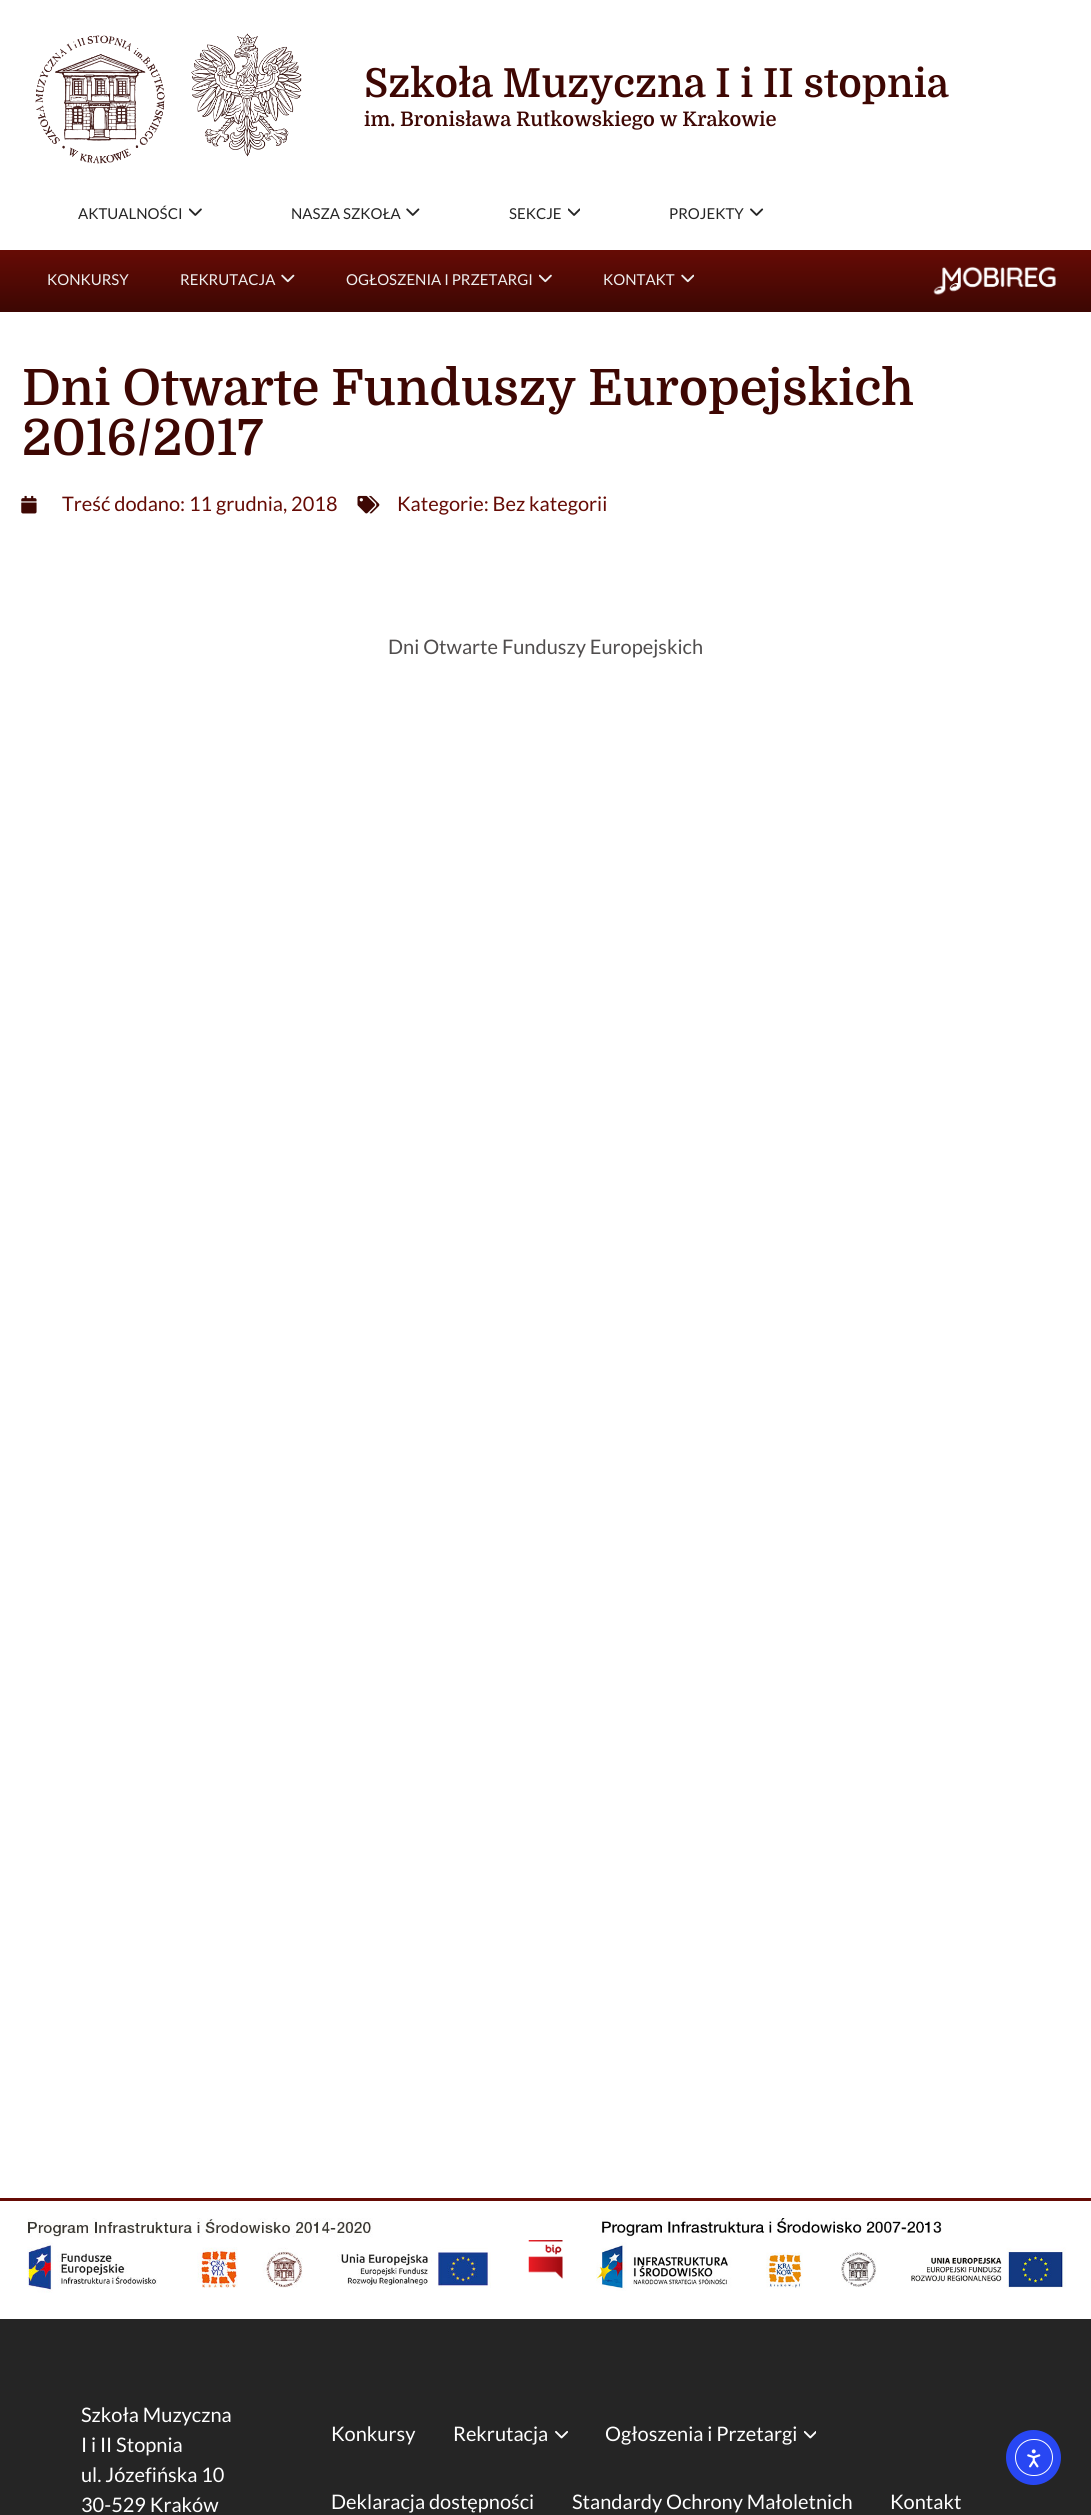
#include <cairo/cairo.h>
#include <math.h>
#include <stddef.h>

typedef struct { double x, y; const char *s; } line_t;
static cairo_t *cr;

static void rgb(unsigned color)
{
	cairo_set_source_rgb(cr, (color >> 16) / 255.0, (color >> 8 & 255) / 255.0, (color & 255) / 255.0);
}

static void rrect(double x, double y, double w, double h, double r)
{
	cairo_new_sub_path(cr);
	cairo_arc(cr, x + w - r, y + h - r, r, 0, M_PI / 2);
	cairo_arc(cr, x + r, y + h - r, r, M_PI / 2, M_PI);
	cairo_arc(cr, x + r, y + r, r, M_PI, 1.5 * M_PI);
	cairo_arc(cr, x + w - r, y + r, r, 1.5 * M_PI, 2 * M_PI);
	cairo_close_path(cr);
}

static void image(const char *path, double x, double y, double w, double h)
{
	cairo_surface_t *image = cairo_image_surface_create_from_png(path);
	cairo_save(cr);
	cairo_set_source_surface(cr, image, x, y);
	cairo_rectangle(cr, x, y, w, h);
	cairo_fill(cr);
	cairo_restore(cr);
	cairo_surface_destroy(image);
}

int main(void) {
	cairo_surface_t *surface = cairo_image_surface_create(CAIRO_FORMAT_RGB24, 1091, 2515);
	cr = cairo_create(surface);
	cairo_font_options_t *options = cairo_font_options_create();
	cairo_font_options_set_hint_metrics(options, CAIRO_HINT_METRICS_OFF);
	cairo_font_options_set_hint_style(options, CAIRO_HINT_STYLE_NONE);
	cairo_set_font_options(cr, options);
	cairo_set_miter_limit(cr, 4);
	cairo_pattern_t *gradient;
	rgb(0xffffff);
	cairo_paint(cr);
	image("img/1.png", 35, 35, 130, 129);
	image("img/2.png", 191, 33, 111, 124);
	image("img/3.png", 189, 208, 13, 8);
	image("img/4.png", 406, 208, 14, 8);
	image("img/5.png", 568, 208, 12, 8);
	image("img/6.png", 750, 208, 14, 8);
	gradient = cairo_pattern_create_linear(546, 250, 546, 309);
	cairo_pattern_add_color_stop_rgba(gradient, 0, 0.4, 0.043, 0.02, 1);
	cairo_pattern_add_color_stop_rgba(gradient, 1, 0.243, 0.027, 0.012, 1);
	cairo_set_source(cr, gradient);
	cairo_pattern_destroy(gradient);
	cairo_rectangle(cr, 0, 250, 1091, 59);
	cairo_fill(cr);
	rgb(0x3e0703);
	cairo_rectangle(cr, 0, 309, 1091, 3);
	cairo_fill(cr);
	image("img/7.png", 281, 274, 14, 9);
	image("img/8.png", 539, 274, 13, 9);
	image("img/9.png", 681, 274, 13, 9);
	image("img/10.png", 933, 266, 123, 29);
	image("img/11.png", 21, 495, 16, 19);
	image("img/12.png", 357, 495, 23, 19);
	rgb(0x660b05);
	cairo_rectangle(cr, 0, 2198, 1091, 3);
	cairo_fill(cr);
	image("img/13.png", 27, 2218, 464, 75);
	image("img/14.png", 528, 2240, 35, 39);
	image("img/15.png", 596, 2218, 470, 73);
	rgb(0x252525);
	cairo_rectangle(cr, 0, 2319, 1091, 196);
	cairo_fill(cr);
	image("img/16.png", 555, 2431, 13, 8);
	image("img/17.png", 804, 2431, 12, 8);
	rgb(0x2847f3);
	cairo_arc(cr, 1033.5, 2457.5, 27.5, 0, 2 * M_PI);
	cairo_fill(cr);
	rrect(1015.5, 2439.5, 37, 36, 18);
	rgb(0xffffff);
	cairo_set_line_width(cr, 1);
	cairo_stroke(cr);
	image("img/18.png", 1027, 2449, 14, 19);
	cairo_select_font_face(cr, "Domine SemiBold", CAIRO_FONT_SLANT_NORMAL, CAIRO_FONT_WEIGHT_NORMAL);
	cairo_set_font_size(cr, 40);
	rgb(0x3e0703);
	cairo_move_to(cr, 364, 97);
	cairo_show_text(cr, "Szkoła Muzyczna I i II stopnia");
	cairo_set_font_size(cr, 20);
	cairo_move_to(cr, 364, 126);
	cairo_show_text(cr, "im. Bronisława Rutkowskiego w Krakowie");
	cairo_select_font_face(cr, "Lato", CAIRO_FONT_SLANT_NORMAL, CAIRO_FONT_WEIGHT_NORMAL);
	cairo_set_font_size(cr, 15);
	rgb(0x252525);
	{
		static const line_t items[] = {
			{78, 219, "AKTUALNOŚCI"},
			{291, 219, "NASZA SZKOŁA"},
			{509, 219, "SEKCJE"},
			{669, 219, "PROJEKTY"},
		};
		for (size_t i = 0; i < sizeof items / sizeof *items; i++) {
			cairo_move_to(cr, items[i].x, items[i].y);
			cairo_show_text(cr, items[i].s);
		}
	}
	rgb(0xeeeeee);
	{
		static const line_t items[] = {
			{47, 285, "KONKURSY"},
			{180, 285, "REKRUTACJA"},
			{346, 285, "OGŁOSZENIA I PRZETARGI"},
			{603, 285, "KONTAKT"},
		};
		for (size_t i = 0; i < sizeof items / sizeof *items; i++) {
			cairo_move_to(cr, items[i].x, items[i].y);
			cairo_show_text(cr, items[i].s);
		}
	}
	cairo_select_font_face(cr, "Domine SemiBold", CAIRO_FONT_SLANT_NORMAL, CAIRO_FONT_WEIGHT_NORMAL);
	cairo_set_font_size(cr, 50);
	rgb(0x3e0703);
	cairo_move_to(cr, 22, 405);
	cairo_show_text(cr, "Dni Otwarte Funduszy Europejskich");
	cairo_move_to(cr, 22, 455);
	cairo_show_text(cr, "2016/2017");
	cairo_select_font_face(cr, "Lato", CAIRO_FONT_SLANT_NORMAL, CAIRO_FONT_WEIGHT_NORMAL);
	cairo_set_font_size(cr, 20);
	rgb(0x660b05);
	cairo_move_to(cr, 62, 511);
	cairo_show_text(cr, "Treść dodano: 11 grudnia, 2018");
	cairo_move_to(cr, 397, 511);
	cairo_show_text(cr, "Kategorie: Bez kategorii");
	rgb(0x504d4d);
	cairo_move_to(cr, 388, 654);
	cairo_show_text(cr, "Dni Otwarte Funduszy Europejskich");
	rgb(0xffffff);
	{
		static const line_t items[] = {
			{81, 2422, "Szkoła Muzyczna"},
			{81, 2452, "I i II Stopnia"},
			{81, 2482, "ul. Józefińska 10"},
			{81, 2512, "30-529 Kraków"},
			{331, 2441, "Konkursy"},
			{453, 2441, "Rekrutacja"},
			{605, 2441, "Ogłoszenia i Przetargi"},
			{331, 2509, "Deklaracja dostępności"},
			{572, 2509, "Standardy Ochrony Małoletnich"},
			{890, 2509, "Kontakt"},
		};
		for (size_t i = 0; i < sizeof items / sizeof *items; i++) {
			cairo_move_to(cr, items[i].x, items[i].y);
			cairo_show_text(cr, items[i].s);
		}
	}
	cairo_surface_write_to_png(surface, "page.png");
	cairo_font_options_destroy(options);
	cairo_destroy(cr);
	cairo_surface_destroy(surface);
	return 0;
}
